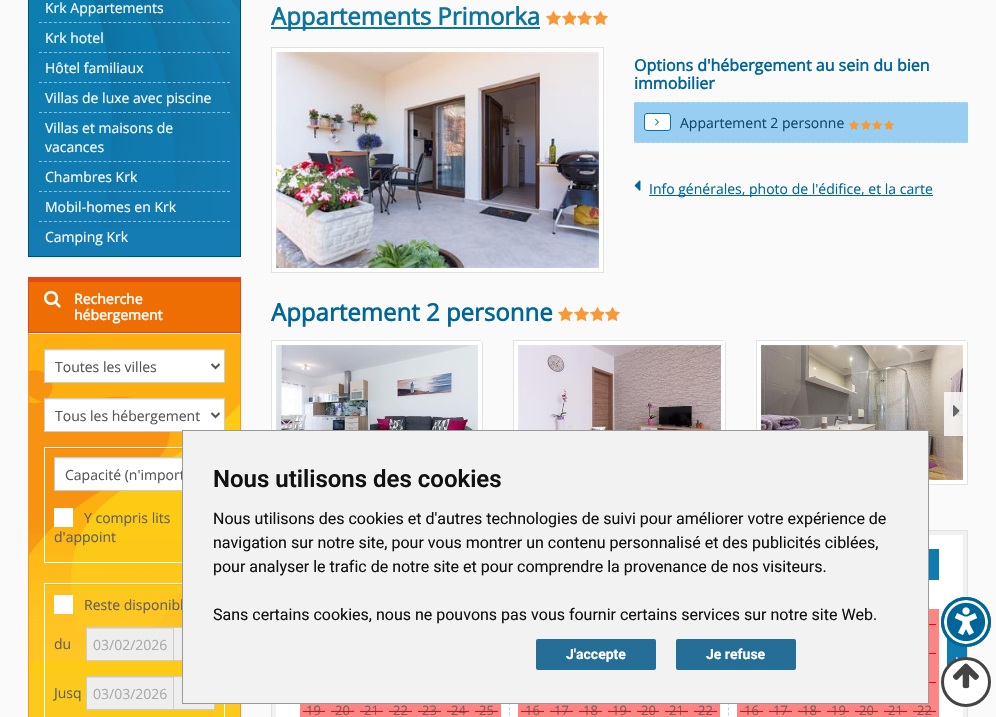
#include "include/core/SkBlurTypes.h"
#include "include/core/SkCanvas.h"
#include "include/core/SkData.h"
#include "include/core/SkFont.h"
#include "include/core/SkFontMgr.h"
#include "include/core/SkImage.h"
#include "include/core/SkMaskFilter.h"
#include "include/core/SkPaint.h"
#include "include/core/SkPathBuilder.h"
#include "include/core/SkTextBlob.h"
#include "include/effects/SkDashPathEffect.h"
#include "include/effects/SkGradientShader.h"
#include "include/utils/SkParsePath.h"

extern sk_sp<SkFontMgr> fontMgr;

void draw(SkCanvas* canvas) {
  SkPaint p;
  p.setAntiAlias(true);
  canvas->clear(SkColorSetRGB(250, 250, 250));
  p.setColor(SkColorSetARGB(13, 0, 0, 0));
  p.setMaskFilter(SkMaskFilter::MakeBlur(kNormal_SkBlurStyle, 0.5f));
  canvas->drawRect(SkRect::MakeLTRB(28, -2, 241, 258), p);
  p.setMaskFilter(nullptr);
  p.setColor(SkColorSetRGB(20, 123, 179));
  canvas->drawRect(SkRect::MakeLTRB(29, 228, 240, 256), p);
  p.setColor(SkColorSetRGB(2, 79, 118));
  canvas->drawRect(SkRect::MakeLTRB(240, 0, 241, 257), p);
  canvas->drawRect(SkRect::MakeLTRB(28, 256, 241, 257), p);
  canvas->drawRect(SkRect::MakeLTRB(28, 0, 29, 257), p);
  canvas->drawImageRect(SkImages::DeferredFromEncodedData(SkData::MakeFromFileName("images/1.png")), SkRect::MakeLTRB(29, 0, 240, 228), SkSamplingOptions());
  p.setStyle(SkPaint::kStroke_Style);
  p.setStrokeWidth(1);
  p.setColor(SkColorSetRGB(134, 196, 240));
  p.setPathEffect(SkDashPathEffect::Make({{3, 1.95f}}, 0));
  canvas->drawPath(SkPathBuilder().moveTo(39, 22.5f).lineTo(230, 22.5f).detach(), p);
  p.setPathEffect(nullptr);
  p.setPathEffect(SkDashPathEffect::Make({{3, 1.95f}}, 0));
  canvas->drawPath(SkPathBuilder().moveTo(39, 52.5f).lineTo(230, 52.5f).detach(), p);
  p.setPathEffect(nullptr);
  p.setPathEffect(SkDashPathEffect::Make({{3, 1.95f}}, 0));
  canvas->drawPath(SkPathBuilder().moveTo(39, 82.5f).lineTo(230, 82.5f).detach(), p);
  p.setPathEffect(nullptr);
  p.setPathEffect(SkDashPathEffect::Make({{3, 1.95f}}, 0));
  canvas->drawPath(SkPathBuilder().moveTo(39, 112.5f).lineTo(230, 112.5f).detach(), p);
  p.setPathEffect(nullptr);
  p.setPathEffect(SkDashPathEffect::Make({{3, 1.95f}}, 0));
  canvas->drawPath(SkPathBuilder().moveTo(39, 161.5f).lineTo(230, 161.5f).detach(), p);
  p.setPathEffect(nullptr);
  p.setPathEffect(SkDashPathEffect::Make({{3, 1.95f}}, 0));
  canvas->drawPath(SkPathBuilder().moveTo(39, 191.5f).lineTo(230, 191.5f).detach(), p);
  p.setPathEffect(nullptr);
  p.setPathEffect(SkDashPathEffect::Make({{3, 1.95f}}, 0));
  canvas->drawPath(SkPathBuilder().moveTo(39, 221.5f).lineTo(230, 221.5f).detach(), p);
  p.setPathEffect(nullptr);
  p.setStyle(SkPaint::kFill_Style);
  p.setColor(SkColorSetRGB(252, 202, 28));
  canvas->drawRect(SkRect::MakeLTRB(29, 673, 240, 717), p);
  p.setColor(SkColorSetRGB(238, 110, 3));
  canvas->drawRect(SkRect::MakeLTRB(29, 282, 240, 332), p);
  p.setColor(SkColorSetRGB(223, 74, 23));
  canvas->drawRect(SkRect::MakeLTRB(28, 277, 241, 282), p);
  canvas->drawRect(SkRect::MakeLTRB(240, 277, 241, 333), p);
  canvas->drawRect(SkRect::MakeLTRB(28, 332, 241, 333), p);
  canvas->drawRect(SkRect::MakeLTRB(28, 277, 29, 333), p);
  canvas->drawImageRect(SkImages::DeferredFromEncodedData(SkData::MakeFromFileName("images/2.png")), SkRect::MakeLTRB(44, 290, 61, 308), SkSamplingOptions());
  canvas->drawImageRect(SkImages::DeferredFromEncodedData(SkData::MakeFromFileName("images/3.png")), SkRect::MakeLTRB(29, 334, 240, 673), SkSamplingOptions());
  p.setColor(SK_ColorWHITE);
  canvas->drawRect(SkRect::MakeLTRB(28, 333, 241, 334), p);
  p.setColor(SkColorSetRGB(247, 153, 29));
  canvas->drawRect(SkRect::MakeLTRB(240, 333, 241, 717), p);
  canvas->drawRect(SkRect::MakeLTRB(28, 333, 29, 717), p);
  p.setColor(SK_ColorWHITE);
  canvas->drawRect(SkRect::MakeLTRB(45, 351, 224, 382), p);
  p.setColor(SkColorSetRGB(236, 236, 236));
  canvas->drawRect(SkRect::MakeLTRB(45, 350, 224, 351), p);
  p.setStyle(SkPaint::kStroke_Style);
  p.setColor(SkColorSetRGB(204, 204, 204));
  canvas->drawRect(SkRect::MakeLTRB(44.5f, 349.5f, 224.5f, 382.5f), p);
  p.setStrokeWidth(2);
  p.setColor(SkColorSetRGB(85, 85, 85));
  canvas->drawPath(SkPathBuilder().moveTo(211.5f, 364).lineTo(215.5f, 368).lineTo(219.5f, 364).detach(), p);
  p.setStyle(SkPaint::kFill_Style);
  p.setColor(SK_ColorWHITE);
  canvas->drawRect(SkRect::MakeLTRB(45, 400, 224, 431), p);
  p.setColor(SkColorSetRGB(236, 236, 236));
  canvas->drawRect(SkRect::MakeLTRB(45, 399, 224, 400), p);
  p.setStyle(SkPaint::kStroke_Style);
  p.setStrokeWidth(1);
  p.setColor(SkColorSetRGB(204, 204, 204));
  canvas->drawRect(SkRect::MakeLTRB(44.5f, 398.5f, 224.5f, 431.5f), p);
  p.setStrokeWidth(2);
  p.setColor(SkColorSetRGB(85, 85, 85));
  canvas->drawPath(SkPathBuilder().moveTo(211.5f, 413).lineTo(215.5f, 417).lineTo(219.5f, 413).detach(), p);
  p.setStyle(SkPaint::kFill_Style);
  p.setColor(SkColorSetARGB(13, 0, 0, 0));
  canvas->drawRect(SkRect::MakeLTRB(45, 448, 182, 449), p);
  p.setStyle(SkPaint::kStroke_Style);
  p.setStrokeWidth(1);
  p.setColor(SK_ColorWHITE);
  canvas->drawRect(SkRect::MakeLTRB(44.5f, 447.5f, 224.5f, 562.5f), p);
  p.setStyle(SkPaint::kFill_Style);
  canvas->drawRect(SkRect::MakeLTRB(55, 459, 182, 490), p);
  p.setColor(SkColorSetRGB(236, 236, 236));
  canvas->drawRect(SkRect::MakeLTRB(55, 458, 182, 459), p);
  p.setStyle(SkPaint::kStroke_Style);
  p.setColor(SkColorSetRGB(204, 204, 204));
  canvas->drawRect(SkRect::MakeLTRB(54.5f, 457.5f, 214.5f, 490.5f), p);
  p.setStyle(SkPaint::kFill_Style);
  p.setColor(SK_ColorWHITE);
  canvas->drawRect(SkRect::MakeLTRB(54, 508, 73, 527), p);
  p.setColor(SkColorSetARGB(13, 0, 0, 0));
  canvas->drawRect(SkRect::MakeLTRB(45, 584, 182, 585), p);
  p.setStyle(SkPaint::kStroke_Style);
  p.setColor(SK_ColorWHITE);
  canvas->drawRect(SkRect::MakeLTRB(44.5f, 583.5f, 224.5f, 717.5f), p);
  p.setStyle(SkPaint::kFill_Style);
  canvas->drawRect(SkRect::MakeLTRB(54, 595, 73, 614), p);
  p.setColor(SkColorSetRGB(238, 238, 238));
  canvas->drawRect(SkRect::MakeLTRB(87, 629, 173, 660), p);
  p.setColor(SkColorSetRGB(220, 220, 220));
  canvas->drawRect(SkRect::MakeLTRB(87, 628, 173, 629), p);
  p.setStyle(SkPaint::kStroke_Style);
  p.setColor(SkColorSetRGB(204, 204, 204));
  canvas->drawRect(SkRect::MakeLTRB(86.5f, 627.5f, 173.5f, 660.5f), p);
  p.setStyle(SkPaint::kFill_Style);
  p.setColor(SkColorSetRGB(238, 238, 238));
  canvas->drawRect(SkRect::MakeLTRB(174, 628, 182, 660), p);
  p.setColor(SkColorSetRGB(204, 204, 204));
  canvas->drawRect(SkRect::MakeLTRB(174, 627, 182, 628), p);
  canvas->drawRect(SkRect::MakeLTRB(174, 660, 182, 661), p);
  p.setColor(SkColorSetRGB(238, 238, 238));
  canvas->drawRect(SkRect::MakeLTRB(87, 678, 173, 709), p);
  p.setColor(SkColorSetRGB(220, 220, 220));
  canvas->drawRect(SkRect::MakeLTRB(87, 677, 173, 678), p);
  p.setStyle(SkPaint::kStroke_Style);
  p.setColor(SkColorSetRGB(204, 204, 204));
  canvas->drawRect(SkRect::MakeLTRB(86.5f, 676.5f, 173.5f, 709.5f), p);
  p.setStyle(SkPaint::kFill_Style);
  p.setColor(SkColorSetRGB(238, 238, 238));
  canvas->drawRect(SkRect::MakeLTRB(174, 677, 214, 709), p);
  p.setColor(SkColorSetRGB(204, 204, 204));
  canvas->drawRect(SkRect::MakeLTRB(174, 676, 182, 677), p);
  canvas->drawRect(SkRect::MakeLTRB(214, 704, 215, 710), p);
  canvas->drawRect(SkRect::MakeLTRB(174, 709, 215, 710), p);
  p.setColor(SkColorSetRGB(13, 116, 161));
  canvas->drawRect(SkRect::MakeLTRB(271, 27, 540, 29), p);
  canvas->drawImageRect(SkImages::DeferredFromEncodedData(SkData::MakeFromFileName("images/4.png")), SkRect::MakeLTRB(546, 11, 561, 25), SkSamplingOptions());
  canvas->drawImageRect(SkImages::DeferredFromEncodedData(SkData::MakeFromFileName("images/5.png")), SkRect::MakeLTRB(562, 11, 576, 25), SkSamplingOptions());
  canvas->drawImageRect(SkImages::DeferredFromEncodedData(SkData::MakeFromFileName("images/4.png")), SkRect::MakeLTRB(577, 11, 592, 25), SkSamplingOptions());
  canvas->drawImageRect(SkImages::DeferredFromEncodedData(SkData::MakeFromFileName("images/4.png")), SkRect::MakeLTRB(593, 11, 608, 25), SkSamplingOptions());
  canvas->save();
  canvas->clipRect(SkRect::MakeLTRB(272, 48, 603, 272));
  p.setColor(SK_ColorWHITE);
  canvas->drawPath(SkPathBuilder(SkPathFillType::kEvenOdd).moveTo(173, -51).lineTo(702, -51).lineTo(702, 371).lineTo(173, 371).close().moveTo(268, 44).lineTo(599, 44).lineTo(599, 268).lineTo(268, 268).close().detach(), p);
  canvas->drawPath(SkPathBuilder(SkPathFillType::kEvenOdd).moveTo(173, -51).lineTo(702, -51).lineTo(702, 371).lineTo(173, 371).close().moveTo(276, 52).lineTo(607, 52).lineTo(607, 276).lineTo(276, 276).close().detach(), p);
  canvas->restore();
  p.setStyle(SkPaint::kStroke_Style);
  p.setColor(SkColorSetRGB(226, 226, 226));
  canvas->drawRect(SkRect::MakeLTRB(271.5f, 47.5f, 603.5f, 272.5f), p);
  canvas->drawImageRect(SkImages::DeferredFromEncodedData(SkData::MakeFromFileName("images/6.png")), SkRect::MakeLTRB(276, 52, 599, 268), SkSamplingOptions());
  p.setStyle(SkPaint::kFill_Style);
  p.setColor(SkColorSetRGB(152, 206, 242));
  canvas->drawRect(SkRect::MakeLTRB(634, 102, 968, 143), p);
  p.setStyle(SkPaint::kStroke_Style);
  p.setColor(SkColorSetRGB(172, 217, 247));
  p.setPathEffect(SkDashPathEffect::Make({{3, 2.02f}}, 0));
  canvas->drawPath(SkPathBuilder().moveTo(634, 102.5f).lineTo(968, 102.5f).detach(), p);
  p.setPathEffect(nullptr);
  p.setPathEffect(SkDashPathEffect::Make({{3, 2.02f}}, 0));
  canvas->drawPath(SkPathBuilder().moveTo(634, 142.5f).lineTo(968, 142.5f).detach(), p);
  p.setPathEffect(nullptr);
  p.setStyle(SkPaint::kFill_Style);
  p.setColor(SK_ColorWHITE);
  canvas->drawRoundRect(SkRect::MakeLTRB(644.5f, 113.5f, 670.5f, 130.5f), 2.5f, 2.5f, p);
  p.setStyle(SkPaint::kStroke_Style);
  p.setColor(SkColorSetRGB(13, 116, 161));
  canvas->drawRoundRect(SkRect::MakeLTRB(644.5f, 113.5f, 670.5f, 130.5f), 2.5f, 2.5f, p);
  canvas->drawImageRect(SkImages::DeferredFromEncodedData(SkData::MakeFromFileName("images/7.png")), SkRect::MakeLTRB(655, 118, 659, 126), SkSamplingOptions());
  canvas->drawImageRect(SkImages::DeferredFromEncodedData(SkData::MakeFromFileName("images/8.png")), SkRect::MakeLTRB(849, 120, 859, 130), SkSamplingOptions());
  canvas->drawImageRect(SkImages::DeferredFromEncodedData(SkData::MakeFromFileName("images/8.png")), SkRect::MakeLTRB(861, 120, 871, 130), SkSamplingOptions());
  canvas->drawImageRect(SkImages::DeferredFromEncodedData(SkData::MakeFromFileName("images/8.png")), SkRect::MakeLTRB(872, 120, 882, 130), SkSamplingOptions());
  canvas->drawImageRect(SkImages::DeferredFromEncodedData(SkData::MakeFromFileName("images/8.png")), SkRect::MakeLTRB(884, 120, 894, 130), SkSamplingOptions());
  canvas->drawImageRect(SkImages::DeferredFromEncodedData(SkData::MakeFromFileName("images/9.png")), SkRect::MakeLTRB(634, 180, 641, 191), SkSamplingOptions());
  p.setStyle(SkPaint::kFill_Style);
  p.setColor(SkColorSetRGB(0, 102, 153));
  canvas->drawRect(SkRect::MakeLTRB(649, 195, 933, 196), p);
  canvas->drawImageRect(SkImages::DeferredFromEncodedData(SkData::MakeFromFileName("images/4.png")), SkRect::MakeLTRB(558, 307, 573, 321), SkSamplingOptions());
  canvas->drawImageRect(SkImages::DeferredFromEncodedData(SkData::MakeFromFileName("images/4.png")), SkRect::MakeLTRB(574, 307, 589, 321), SkSamplingOptions());
  canvas->drawImageRect(SkImages::DeferredFromEncodedData(SkData::MakeFromFileName("images/5.png")), SkRect::MakeLTRB(590, 307, 604, 321), SkSamplingOptions());
  canvas->drawImageRect(SkImages::DeferredFromEncodedData(SkData::MakeFromFileName("images/4.png")), SkRect::MakeLTRB(605, 307, 620, 321), SkSamplingOptions());
  p.setColor(SkColorSetRGB(226, 226, 226));
  canvas->drawPath(SkPathBuilder().moveTo(271, 340).lineTo(271, 483).lineTo(272, 483).lineTo(272, 341).lineTo(481, 341).lineTo(481, 340).close().detach(), p);
  canvas->drawPath(SkPathBuilder().moveTo(273, 484).lineTo(273, 485).lineTo(483, 485).lineTo(483, 342).lineTo(482, 342).lineTo(482, 484).close().detach(), p);
  p.setColor(SK_ColorWHITE);
  canvas->drawRect(SkRect::MakeLTRB(272, 341, 482, 430), p);
  canvas->drawImageRect(SkImages::DeferredFromEncodedData(SkData::MakeFromFileName("images/10.png")), SkRect::MakeLTRB(276, 345, 478, 430), SkSamplingOptions());
  p.setColor(SkColorSetRGB(226, 226, 226));
  canvas->drawPath(SkPathBuilder().moveTo(513, 340).lineTo(513, 483).lineTo(514, 483).lineTo(514, 341).lineTo(724, 341).lineTo(724, 340).close().detach(), p);
  canvas->drawPath(SkPathBuilder().moveTo(515, 484).lineTo(515, 485).lineTo(726, 485).lineTo(726, 342).lineTo(725, 342).lineTo(725, 484).close().detach(), p);
  p.setColor(SK_ColorWHITE);
  canvas->drawRect(SkRect::MakeLTRB(514, 341, 725, 430), p);
  canvas->drawImageRect(SkImages::DeferredFromEncodedData(SkData::MakeFromFileName("images/11.png")), SkRect::MakeLTRB(518, 345, 721, 430), SkSamplingOptions());
  p.setColor(SkColorSetRGB(226, 226, 226));
  canvas->drawPath(SkPathBuilder().moveTo(756, 340).lineTo(756, 483).lineTo(757, 483).lineTo(757, 341).lineTo(966, 341).lineTo(966, 340).close().detach(), p);
  canvas->drawPath(SkPathBuilder().moveTo(758, 484).lineTo(758, 485).lineTo(968, 485).lineTo(968, 342).lineTo(967, 342).lineTo(967, 484).close().detach(), p);
  p.setColor(SK_ColorWHITE);
  canvas->drawRect(SkRect::MakeLTRB(757, 341, 967, 484), p);
  canvas->drawImageRect(SkImages::DeferredFromEncodedData(SkData::MakeFromFileName("images/12.png")), SkRect::MakeLTRB(761, 345, 963, 480), SkSamplingOptions());
  p.setColor(SkColorSetARGB(204, 255, 255, 255));
  canvas->drawRect(SkRect::MakeLTRB(944, 392, 963, 436), p);
  canvas->drawImageRect(SkImages::DeferredFromEncodedData(SkData::MakeFromFileName("images/13.png")), SkRect::MakeLTRB(953, 405, 960, 417), SkSamplingOptions());
  p.setColor(SK_ColorWHITE);
  canvas->drawRect(SkRect::MakeLTRB(276, 535, 963, 717), p);
  canvas->save();
  canvas->clipRect(SkRect::MakeLTRB(272, 531, 967, 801));
  p.setColor(SkColorSetRGB(241, 241, 241));
  canvas->drawPath(SkPathBuilder(SkPathFillType::kEvenOdd).moveTo(173, 432).lineTo(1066, 432).lineTo(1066, 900).lineTo(173, 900).close().moveTo(268, 527).lineTo(963, 527).lineTo(963, 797).lineTo(268, 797).close().detach(), p);
  canvas->drawPath(SkPathBuilder(SkPathFillType::kEvenOdd).moveTo(173, 432).lineTo(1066, 432).lineTo(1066, 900).lineTo(173, 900).close().moveTo(276, 535).lineTo(971, 535).lineTo(971, 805).lineTo(276, 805).close().detach(), p);
  canvas->restore();
  p.setStyle(SkPaint::kStroke_Style);
  p.setColor(SkColorSetRGB(226, 226, 226));
  canvas->drawRect(SkRect::MakeLTRB(271.5f, 530.5f, 967.5f, 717.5f), p);
  p.setStyle(SkPaint::kFill_Style);
  p.setColor(SkColorSetRGB(14, 123, 177));
  canvas->drawRect(SkRect::MakeLTRB(947, 638, 967, 666), p);
  canvas->drawImageRect(SkImages::DeferredFromEncodedData(SkData::MakeFromFileName("images/14.png")), SkRect::MakeLTRB(956, 657, 959, 660), SkSamplingOptions());
  p.setColor(SkColorSetRGB(255, 132, 132));
  canvas->drawRect(SkRect::MakeLTRB(300, 704, 501, 717), p);
  p.setStyle(SkPaint::kStroke_Style);
  p.setColor(SkColorSetRGB(172, 217, 247));
  p.setPathEffect(SkDashPathEffect::Make({{3, 2.04f}}, 0));
  canvas->drawPath(SkPathBuilder().moveTo(509.5f, 541).lineTo(509.5f, 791).detach(), p);
  p.setPathEffect(nullptr);
  p.setStyle(SkPaint::kFill_Style);
  p.setColor(SkColorSetRGB(255, 132, 132));
  canvas->drawRect(SkRect::MakeLTRB(518, 704, 720, 717), p);
  p.setStyle(SkPaint::kStroke_Style);
  p.setColor(SkColorSetRGB(172, 217, 247));
  p.setPathEffect(SkDashPathEffect::Make({{3, 2.04f}}, 0));
  canvas->drawPath(SkPathBuilder().moveTo(728.5f, 541).lineTo(728.5f, 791).detach(), p);
  p.setPathEffect(nullptr);
  p.setStyle(SkPaint::kFill_Style);
  p.setColor(SkColorSetRGB(14, 123, 177));
  canvas->drawRect(SkRect::MakeLTRB(929, 549, 939, 580), p);
  p.setColor(SkColorSetRGB(255, 132, 132));
  canvas->drawRect(SkRect::MakeLTRB(929, 609, 939, 696), p);
  p.setColor(SkColorSetRGB(255, 0, 0));
  canvas->drawRect(SkRect::MakeLTRB(929, 624, 936, 625), p);
  canvas->drawRect(SkRect::MakeLTRB(929, 653, 936, 654), p);
  canvas->drawRect(SkRect::MakeLTRB(929, 682, 936, 683), p);
  p.setColor(SkColorSetRGB(255, 132, 132));
  canvas->drawRect(SkRect::MakeLTRB(737, 704, 910, 717), p);
  canvas->drawRect(SkRect::MakeLTRB(910, 696, 939, 717), p);
  p.setColor(SkColorSetRGB(0, 102, 153));
  canvas->drawCircle(966, 622, 25, p);
  canvas->drawImageRect(SkImages::DeferredFromEncodedData(SkData::MakeFromFileName("images/15.png")), SkRect::MakeLTRB(944, 600, 988, 644), SkSamplingOptions());
  p.setStyle(SkPaint::kStroke_Style);
  p.setStrokeWidth(3);
  canvas->drawCircle(966, 622, 23.5f, p);
  p.setStyle(SkPaint::kFill_Style);
  p.setColor(SK_ColorWHITE);
  canvas->drawCircle(966, 682, 23.5f, p);
  p.setStyle(SkPaint::kStroke_Style);
  p.setColor(SkColorSetRGB(68, 68, 68));
  canvas->drawCircle(966, 682, 23.5f, p);
  canvas->drawImageRect(SkImages::DeferredFromEncodedData(SkData::MakeFromFileName("images/16.png")), SkRect::MakeLTRB(952, 663, 979, 689), SkSamplingOptions());
  SkFont font1(fontMgr->matchFamilyStyle("Open Sans", SkFontStyle::Normal()), 14);
  font1.setSubpixel(true);
  p.setStyle(SkPaint::kFill_Style);
  p.setColor(SK_ColorWHITE);
  canvas->drawString("Krk Appartements", 45, 13, font1, p);
  canvas->drawString("Krk hotel", 45, 43, font1, p);
  canvas->drawString("Hôtel familiaux", 45, 73, font1, p);
  canvas->drawString("Villas de luxe avec piscine", 45, 103, font1, p);
  canvas->drawString("Villas et maisons de", 45, 133, font1, p);
  canvas->drawString("vacances", 45, 152, font1, p);
  canvas->drawString("Chambres Krk", 45, 182, font1, p);
  canvas->drawString("Mobil-homes en Krk", 45, 212, font1, p);
  canvas->drawString("Camping Krk", 45, 242, font1, p);
  SkFont font2(fontMgr->matchFamilyStyle("Open Sans", SkFontStyle::Bold()), 14);
  font2.setSubpixel(true);
  canvas->drawString("Recherche", 74, 304, font2, p);
  canvas->drawString("hébergement", 74, 320, font2, p);
  p.setColor(SkColorSetRGB(85, 85, 85));
  canvas->drawString("Toutes les villes", 55, 372, font1, p);
  canvas->drawString("Tous les hébergement", 55, 421, font1, p);
  canvas->drawString("Capacité (n'import", 65, 480, font1, p);
  p.setColor(SkColorSetRGB(96, 96, 96));
  canvas->drawString("Y compris lits", 84, 523, font1, p);
  canvas->drawString("d'appoint", 54, 542, font1, p);
  canvas->drawString("Reste disponibl", 84, 610, font1, p);
  canvas->drawString("du", 54, 649, font1, p);
  p.setColor(SkColorSetRGB(170, 170, 170));
  canvas->drawString("03/02/2026", 93, 650, font1, p);
  p.setColor(SkColorSetRGB(96, 96, 96));
  canvas->drawString("Jusq", 54, 698, font1, p);
  p.setColor(SkColorSetRGB(170, 170, 170));
  canvas->drawString("03/03/2026", 93, 699, font1, p);
  SkFont font3(fontMgr->matchFamilyStyle("Open Sans", SkFontStyle::Bold()), 24);
  font3.setSubpixel(true);
  p.setColor(SkColorSetRGB(13, 116, 161));
  canvas->drawString("Appartements Primorka", 271, 25, font3, p);
  SkFont font4(fontMgr->matchFamilyStyle("Open Sans", SkFontStyle::Bold()), 16);
  font4.setSubpixel(true);
  p.setColor(SkColorSetRGB(0, 102, 153));
  canvas->drawString("Options d'hébergement au sein du bien", 634, 71, font4, p);
  canvas->drawString("immobilier", 634, 89, font4, p);
  p.setColor(SkColorSetRGB(16, 73, 107));
  canvas->drawString("Appartement 2 personne", 680, 128, font1, p);
  p.setColor(SkColorSetRGB(0, 102, 153));
  canvas->drawString("Info générales, photo de l'édifice, et la carte", 649, 194, font1, p);
  canvas->drawString("Appartement 2 personne", 271, 321, font3, p);
  SkFont font5(fontMgr->matchFamilyStyle("Open Sans", SkFontStyle::Normal()), 13);
  font5.setSubpixel(true);
  p.setColor(SkColorSetRGB(102, 102, 102));
  canvas->drawString("19", 306, 715, font5, p);
  p.setColor(SkColorSetRGB(255, 0, 0));
  canvas->drawRect(SkRect::MakeLTRB(303, 711, 325, 712), p);
  p.setColor(SkColorSetRGB(102, 102, 102));
  canvas->drawString("20", 335, 715, font5, p);
  p.setColor(SkColorSetRGB(255, 0, 0));
  canvas->drawRect(SkRect::MakeLTRB(331, 711, 354, 712), p);
  p.setColor(SkColorSetRGB(102, 102, 102));
  canvas->drawString("21", 364, 715, font5, p);
  p.setColor(SkColorSetRGB(255, 0, 0));
  canvas->drawRect(SkRect::MakeLTRB(360, 711, 383, 712), p);
  p.setColor(SkColorSetRGB(102, 102, 102));
  canvas->drawString("22", 393, 715, font5, p);
  p.setColor(SkColorSetRGB(255, 0, 0));
  canvas->drawRect(SkRect::MakeLTRB(389, 711, 412, 712), p);
  p.setColor(SkColorSetRGB(102, 102, 102));
  canvas->drawString("23", 422, 715, font5, p);
  p.setColor(SkColorSetRGB(255, 0, 0));
  canvas->drawRect(SkRect::MakeLTRB(418, 711, 441, 712), p);
  p.setColor(SkColorSetRGB(102, 102, 102));
  canvas->drawString("24", 451, 715, font5, p);
  p.setColor(SkColorSetRGB(255, 0, 0));
  canvas->drawRect(SkRect::MakeLTRB(447, 711, 469, 712), p);
  p.setColor(SkColorSetRGB(102, 102, 102));
  canvas->drawString("25", 479, 715, font5, p);
  p.setColor(SkColorSetRGB(255, 0, 0));
  canvas->drawRect(SkRect::MakeLTRB(475, 711, 498, 712), p);
  p.setColor(SkColorSetRGB(102, 102, 102));
  canvas->drawString("16", 525, 715, font5, p);
  p.setColor(SkColorSetRGB(255, 0, 0));
  canvas->drawRect(SkRect::MakeLTRB(521, 711, 544, 712), p);
  p.setColor(SkColorSetRGB(102, 102, 102));
  canvas->drawString("17", 554, 715, font5, p);
  p.setColor(SkColorSetRGB(255, 0, 0));
  canvas->drawRect(SkRect::MakeLTRB(550, 711, 573, 712), p);
  p.setColor(SkColorSetRGB(102, 102, 102));
  canvas->drawString("18", 583, 715, font5, p);
  p.setColor(SkColorSetRGB(255, 0, 0));
  canvas->drawRect(SkRect::MakeLTRB(579, 711, 602, 712), p);
  p.setColor(SkColorSetRGB(102, 102, 102));
  canvas->drawString("19", 612, 715, font5, p);
  p.setColor(SkColorSetRGB(255, 0, 0));
  canvas->drawRect(SkRect::MakeLTRB(608, 711, 631, 712), p);
  p.setColor(SkColorSetRGB(102, 102, 102));
  canvas->drawString("20", 641, 715, font5, p);
  p.setColor(SkColorSetRGB(255, 0, 0));
  canvas->drawRect(SkRect::MakeLTRB(637, 711, 659, 712), p);
  p.setColor(SkColorSetRGB(102, 102, 102));
  canvas->drawString("21", 669, 715, font5, p);
  p.setColor(SkColorSetRGB(255, 0, 0));
  canvas->drawRect(SkRect::MakeLTRB(665, 711, 688, 712), p);
  p.setColor(SkColorSetRGB(102, 102, 102));
  canvas->drawString("22", 698, 715, font5, p);
  p.setColor(SkColorSetRGB(255, 0, 0));
  canvas->drawRect(SkRect::MakeLTRB(694, 711, 717, 712), p);
  p.setColor(SkColorSetRGB(102, 102, 102));
  canvas->drawString("16", 744, 715, font5, p);
  p.setColor(SkColorSetRGB(255, 0, 0));
  canvas->drawRect(SkRect::MakeLTRB(740, 711, 763, 712), p);
  p.setColor(SkColorSetRGB(102, 102, 102));
  canvas->drawString("17", 773, 715, font5, p);
  p.setColor(SkColorSetRGB(255, 0, 0));
  canvas->drawRect(SkRect::MakeLTRB(769, 711, 792, 712), p);
  p.setColor(SkColorSetRGB(102, 102, 102));
  canvas->drawString("18", 802, 715, font5, p);
  p.setColor(SkColorSetRGB(255, 0, 0));
  canvas->drawRect(SkRect::MakeLTRB(798, 711, 821, 712), p);
  p.setColor(SkColorSetRGB(102, 102, 102));
  canvas->drawString("19", 831, 715, font5, p);
  p.setColor(SkColorSetRGB(255, 0, 0));
  canvas->drawRect(SkRect::MakeLTRB(827, 711, 849, 712), p);
  p.setColor(SkColorSetRGB(102, 102, 102));
  canvas->drawString("20", 859, 715, font5, p);
  p.setColor(SkColorSetRGB(255, 0, 0));
  canvas->drawRect(SkRect::MakeLTRB(855, 711, 878, 712), p);
  p.setColor(SkColorSetRGB(102, 102, 102));
  canvas->drawString("21", 888, 715, font5, p);
  p.setColor(SkColorSetRGB(255, 0, 0));
  canvas->drawRect(SkRect::MakeLTRB(884, 711, 907, 712), p);
  p.setColor(SkColorSetRGB(102, 102, 102));
  canvas->drawString("22", 917, 715, font5, p);
  p.setColor(SkColorSetRGB(255, 0, 0));
  canvas->drawRect(SkRect::MakeLTRB(913, 711, 936, 712), p);
  p.setColor(SkColorSetRGB(242, 242, 242));
  canvas->drawRect(SkRect::MakeLTRB(182.5f, 430.5f, 928.5f, 703.5f), p);
  p.setStyle(SkPaint::kStroke_Style);
  p.setStrokeWidth(1);
  p.setColor(SkColorSetRGB(153, 153, 153));
  canvas->drawRect(SkRect::MakeLTRB(182.5f, 430.5f, 928.5f, 703.5f), p);
  SkFont font6(fontMgr->matchFamilyStyle("Roboto", SkFontStyle(600, SkFontStyle::kNormal_Width, SkFontStyle::kUpright_Slant)), 24);
  font6.setSubpixel(true);
  p.setStyle(SkPaint::kFill_Style);
  p.setColor(SkColorSetRGB(17, 17, 17));
  canvas->drawString("Nous utilisons des cookies", 213, 487, font6, p);
  SkFont font7(fontMgr->matchFamilyStyle("Roboto", SkFontStyle::Normal()), 16);
  font7.setSubpixel(true);
  canvas->drawString("Nous utilisons des cookies et d'autres technologies de suivi pour améliorer votre expérience de", 213, 524, font7, p);
  canvas->drawString("navigation sur notre site, pour vous montrer un contenu personnalisé et des publicités ciblées,", 213, 548, font7, p);
  canvas->drawString("pour analyser le trafic de notre site et pour comprendre la provenance de nos visiteurs.", 213, 572, font7, p);
  canvas->drawString("Sans certains cookies, nous ne pouvons pas vous fournir certains services sur notre site Web.", 213, 620, font7, p);
  p.setColor(SkColorSetRGB(36, 110, 151));
  canvas->drawRoundRect(SkRect::MakeLTRB(536, 639, 656, 670), 2, 2, p);
  SkFont font8(fontMgr->matchFamilyStyle("Roboto", SkFontStyle::Bold()), 14);
  font8.setSubpixel(true);
  p.setColor(SK_ColorWHITE);
  canvas->drawString("J'accepte", 566, 659, font8, p);
  p.setColor(SkColorSetRGB(36, 110, 151));
  canvas->drawRoundRect(SkRect::MakeLTRB(676, 639, 796, 670), 2, 2, p);
  p.setColor(SK_ColorWHITE);
  canvas->drawString("Je refuse", 706, 659, font8, p);
}
